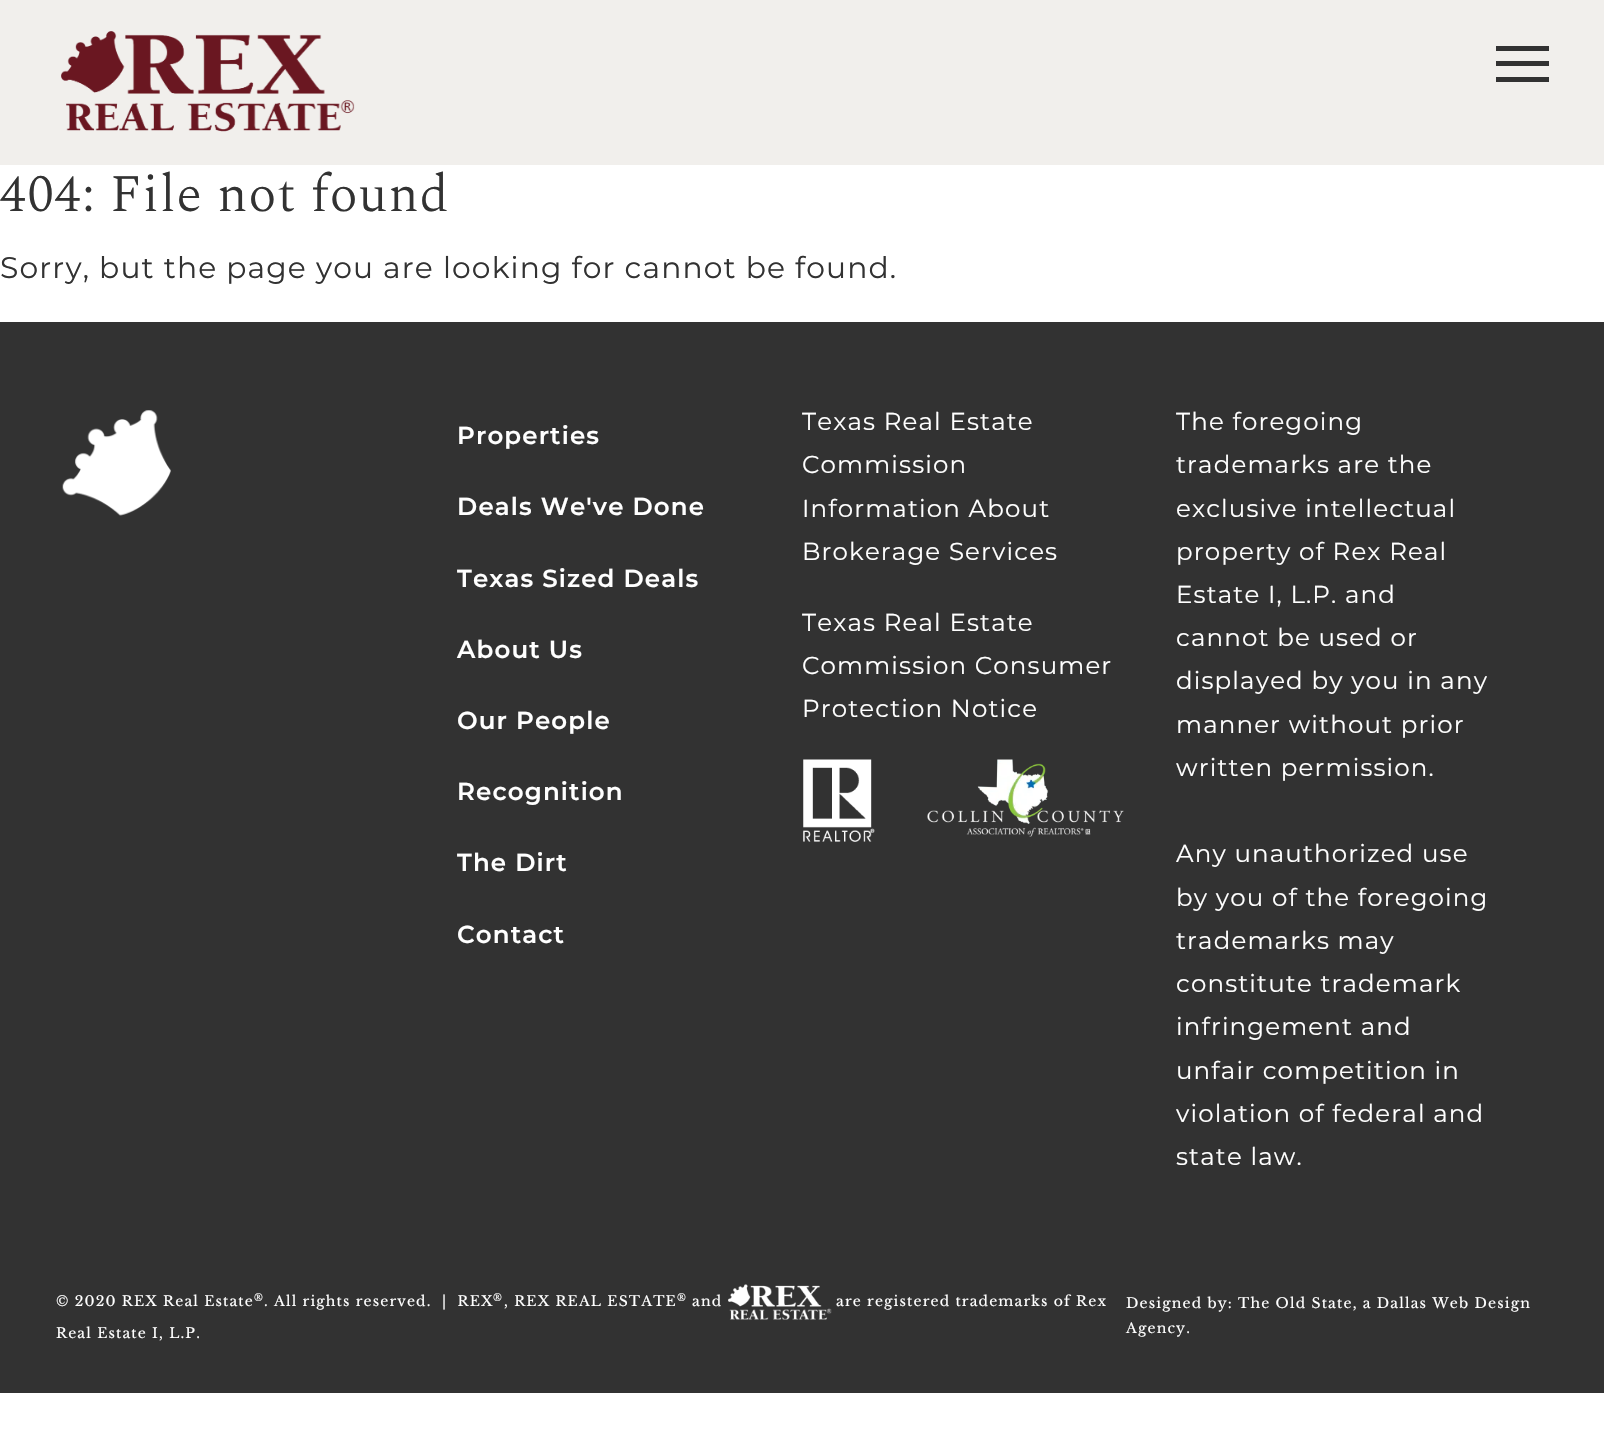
#include "include/core/SkBlurTypes.h"
#include "include/core/SkCanvas.h"
#include "include/core/SkData.h"
#include "include/core/SkFont.h"
#include "include/core/SkFontMgr.h"
#include "include/core/SkImage.h"
#include "include/core/SkMaskFilter.h"
#include "include/core/SkPaint.h"
#include "include/core/SkPathBuilder.h"
#include "include/core/SkTextBlob.h"
#include "include/effects/SkDashPathEffect.h"
#include "include/effects/SkGradientShader.h"
#include "include/utils/SkParsePath.h"

extern sk_sp<SkFontMgr> fontMgr;

void draw(SkCanvas* canvas) {
  SkPaint p;
  p.setAntiAlias(true);
  auto spacedText = [&](const char* s, float x, float y, const SkFont& font, const SkPaint& ink, float letter, float word) {
    std::vector<SkGlyphID> glyphs(font.countText(s, strlen(s), SkTextEncoding::kUTF8));
    std::vector<float> xs(glyphs.size());
    font.textToGlyphs(s, strlen(s), SkTextEncoding::kUTF8, glyphs);
    font.getXPos(glyphs, xs, x);
    float extra = 0;
    for (size_t i = 0; i < glyphs.size(); i++) {
      xs[i] += extra;
      extra += letter + word * (glyphs[i] == font.unicharToGlyph(' '));
    }
    canvas->drawTextBlob(SkTextBlob::MakeFromPosHGlyphs(glyphs, xs, y, font), 0, 0, ink);
  };
  canvas->clear(SK_ColorWHITE);
  p.setColor(SkColorSetRGB(241, 239, 236));
  canvas->drawRect(SkRect::MakeLTRB(0, 0, 1604, 165), p);
  canvas->drawImageRect(SkImages::DeferredFromEncodedData(SkData::MakeFromFileName("images/1.png")), SkRect::MakeLTRB(61, 31, 355, 132), SkSamplingOptions());
  p.setColor(SkColorSetRGB(50, 50, 50));
  canvas->drawRect(SkRect::MakeLTRB(1496, 46, 1549, 51), p);
  canvas->drawRect(SkRect::MakeLTRB(1496, 61, 1549, 66), p);
  canvas->drawRect(SkRect::MakeLTRB(1496, 77, 1549, 82), p);
  canvas->drawRect(SkRect::MakeLTRB(0, 322, 1604, 1393), p);
  canvas->drawImageRect(SkImages::DeferredFromEncodedData(SkData::MakeFromFileName("images/2.png")), SkRect::MakeLTRB(62, 410, 171, 516), SkSamplingOptions());
  canvas->drawImageRect(SkImages::DeferredFromEncodedData(SkData::MakeFromFileName("images/3.png")), SkRect::MakeLTRB(803, 759, 875, 842), SkSamplingOptions());
  canvas->drawImageRect(SkImages::DeferredFromEncodedData(SkData::MakeFromFileName("images/4.png")), SkRect::MakeLTRB(927, 759, 1124, 837), SkSamplingOptions());
  canvas->drawImageRect(SkImages::DeferredFromEncodedData(SkData::MakeFromFileName("images/5.png")), SkRect::MakeLTRB(728, 1284, 832, 1320), SkSamplingOptions());
  SkFont font1(fontMgr->matchFamilyStyle("Spectral", SkFontStyle(300, SkFontStyle::kNormal_Width, SkFontStyle::kUpright_Slant)), 52.5f);
  font1.setSubpixel(true);
  spacedText("404: File not found", 0, 211, font1, p, 1.15f, 0);
  SkFont font2(fontMgr->matchFamilyStyle("Montserrat", SkFontStyle::Normal()), 29.75f);
  font2.setSubpixel(true);
  spacedText("Sorry, but the page you are looking for cannot be found.", 0, 278, font2, p, 1.15f, 0);
  SkFont font3(fontMgr->matchFamilyStyle("Montserrat", SkFontStyle(600, SkFontStyle::kNormal_Width, SkFontStyle::kUpright_Slant)), 24.5f);
  font3.setSubpixel(true);
  p.setColor(SK_ColorWHITE);
  spacedText("Properties", 457, 444, font3, p, 1.15f, 0);
  spacedText("Deals We've Done", 457, 515, font3, p, 1.15f, 0);
  spacedText("Texas Sized Deals", 457, 587, font3, p, 1.15f, 0);
  spacedText("About Us", 457, 658, font3, p, 1.15f, 0);
  spacedText("Our People", 457, 729, font3, p, 1.15f, 0);
  spacedText("Recognition", 457, 800, font3, p, 1.15f, 0);
  spacedText("The Dirt", 457, 871, font3, p, 1.15f, 0);
  spacedText("Contact", 457, 943, font3, p, 1.15f, 0);
  SkFont font4(fontMgr->matchFamilyStyle("Montserrat", SkFontStyle::Normal()), 24.5f);
  font4.setSubpixel(true);
  spacedText("Texas Real Estate", 802, 430, font4, p, 1.15f, 0);
  spacedText("Commission", 802, 473, font4, p, 1.15f, 0);
  spacedText("Information About", 802, 517, font4, p, 1.15f, 0);
  spacedText("Brokerage Services", 802, 560, font4, p, 1.15f, 0);
  spacedText("Texas Real Estate", 802, 631, font4, p, 1.15f, 0);
  spacedText("Commission Consumer", 802, 674, font4, p, 1.15f, 0);
  spacedText("Protection Notice", 802, 717, font4, p, 1.15f, 0);
  spacedText("The foregoing", 1176, 430, font4, p, 1.15f, 0);
  spacedText("trademarks are the", 1176, 473, font4, p, 1.15f, 0);
  spacedText("exclusive intellectual", 1176, 517, font4, p, 1.15f, 0);
  spacedText("property of Rex Real", 1176, 560, font4, p, 1.15f, 0);
  spacedText("Estate I, L.P. and", 1176, 603, font4, p, 1.15f, 0);
  spacedText("cannot be used or", 1176, 646, font4, p, 1.15f, 0);
  spacedText("displayed by you in any", 1176, 689, font4, p, 1.15f, 0);
  spacedText("manner without prior", 1176, 733, font4, p, 1.15f, 0);
  spacedText("written permission.", 1176, 776, font4, p, 1.15f, 0);
  spacedText("Any unauthorized use", 1176, 862, font4, p, 1.15f, 0);
  spacedText("by you of the foregoing", 1176, 906, font4, p, 1.15f, 0);
  spacedText("trademarks may", 1176, 949, font4, p, 1.15f, 0);
  spacedText("constitute trademark", 1176, 992, font4, p, 1.15f, 0);
  spacedText("infringement and", 1176, 1035, font4, p, 1.15f, 0);
  spacedText("unfair competition in", 1176, 1079, font4, p, 1.15f, 0);
  spacedText("violation of federal and", 1176, 1122, font4, p, 1.15f, 0);
  spacedText("state law.", 1176, 1165, font4, p, 1.15f, 0);
  SkFont font5(fontMgr->matchFamilyStyle("Libre Baskerville", SkFontStyle::Normal()), 14);
  font5.setSubpixel(true);
  spacedText("© 2020 REX Real Estate", 56, 1306, font5, p, 1.15f, 0);
  SkFont font6(fontMgr->matchFamilyStyle("Libre Baskerville", SkFontStyle::Normal()), 10);
  font6.setSubpixel(true);
  spacedText("®", 254, 1301, font6, p, 1.15f, 0);
  spacedText(". All rights reserved.  |  REX", 264, 1306, font5, p, 1.15f, 0);
  spacedText("®", 493, 1301, font6, p, 1.15f, 0);
  spacedText(", REX REAL ESTATE", 504, 1306, font5, p, 1.15f, 0);
  spacedText("®", 677, 1301, font6, p, 1.15f, 0);
  spacedText("and", 692, 1306, font5, p, 1.15f, 0);
  spacedText("are registered trademarks of Rex", 836, 1306, font5, p, 1.15f, 0);
  spacedText("Real Estate I, L.P.", 56, 1338, font5, p, 1.15f, 0);
  spacedText("Designed by: The Old State, a Dallas Web Design", 1126, 1308, font5, p, 1.15f, 0);
  spacedText("Agency.", 1126, 1333, font5, p, 1.15f, 0);
}
